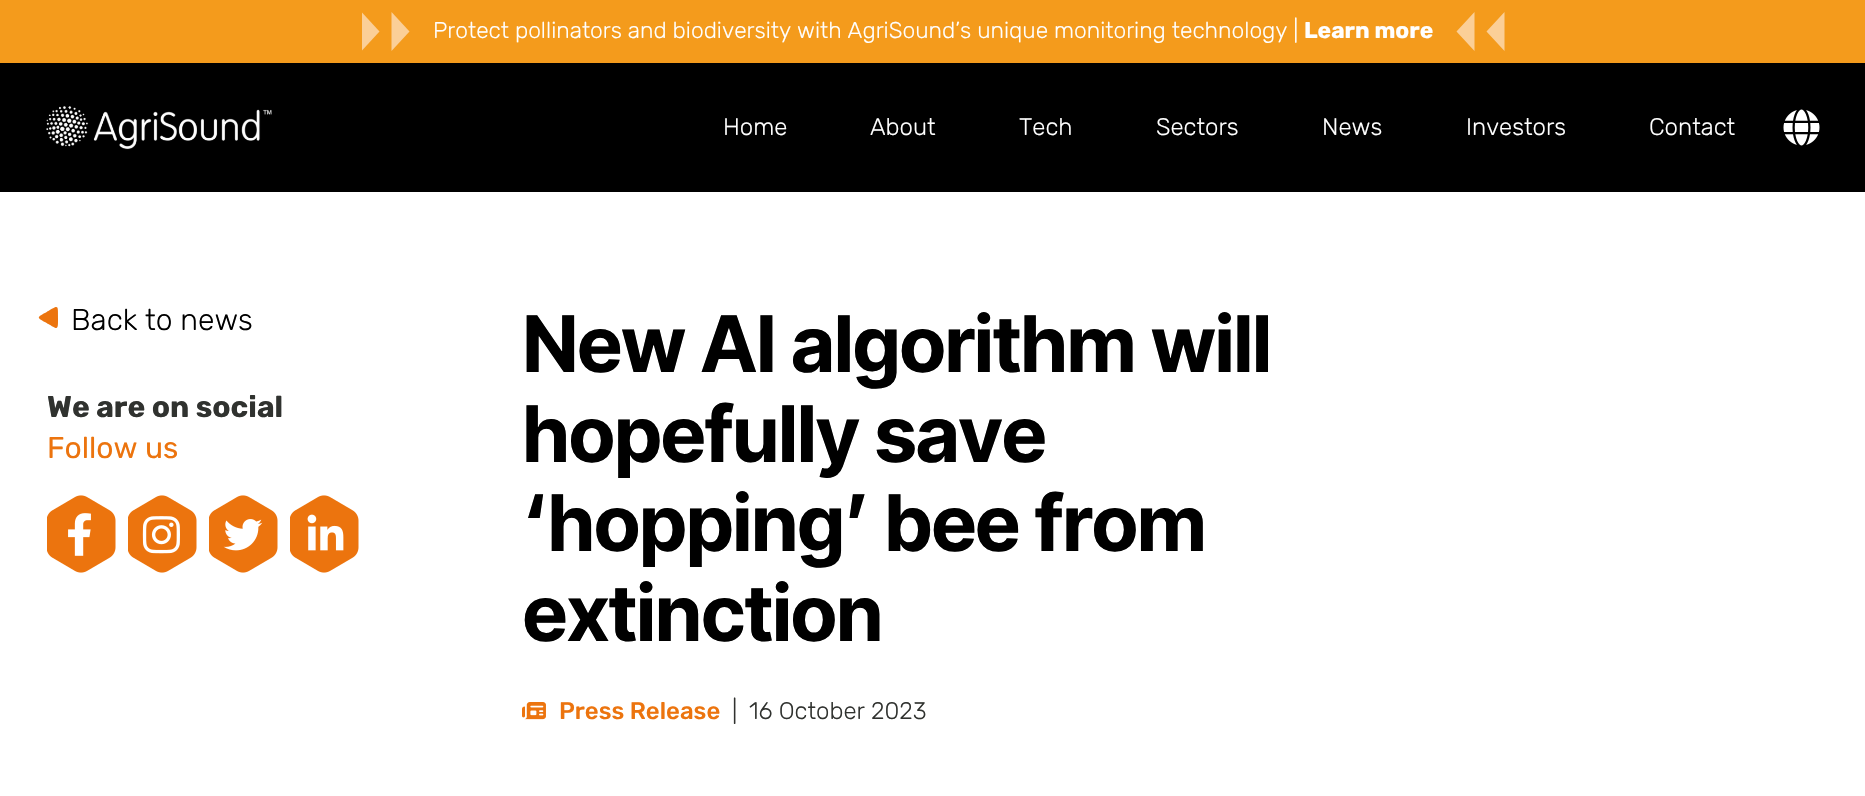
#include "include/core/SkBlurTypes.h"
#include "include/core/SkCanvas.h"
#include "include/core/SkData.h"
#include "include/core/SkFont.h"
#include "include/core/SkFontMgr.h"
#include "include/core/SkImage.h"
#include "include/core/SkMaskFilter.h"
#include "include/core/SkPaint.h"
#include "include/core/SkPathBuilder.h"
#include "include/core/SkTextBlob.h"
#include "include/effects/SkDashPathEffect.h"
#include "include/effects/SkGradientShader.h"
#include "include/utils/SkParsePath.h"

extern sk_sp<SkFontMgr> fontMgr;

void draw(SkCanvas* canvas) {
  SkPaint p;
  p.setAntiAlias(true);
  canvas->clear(SK_ColorWHITE);
  p.setColor(SK_ColorBLACK);
  canvas->drawRect(SkRect::MakeLTRB(0, 63, 1865, 192), p);
  p.setColor(SkColorSetRGB(244, 155, 28));
  canvas->drawRect(SkRect::MakeLTRB(0, 0, 1865, 63), p);
  p.setColor(SkColorSetRGB(251, 207, 151));
  canvas->drawPath(SkPathBuilder().moveTo(409.5f, 31.5f).lineTo(391.5f, 51).lineTo(391.5f, 12).close().detach(), p);
  canvas->save();
  canvas->clipRect(SkRect::MakeLTRB(362, 12, 410, 51));
  canvas->drawPath(SkPathBuilder().moveTo(379.5f, 31.5f).lineTo(361.5f, 51).lineTo(361.5f, 12).close().detach(), p);
  canvas->restore();
  canvas->drawPath(SkPathBuilder().moveTo(1456.5f, 31.5f).lineTo(1474.5f, 12).lineTo(1474.5f, 51).close().moveTo(1486.5f, 31.5f).lineTo(1504.5f, 12).lineTo(1504.5f, 51).close().detach(), p);
  canvas->drawImageRect(SkImages::DeferredFromEncodedData(SkData::MakeFromFileName("images/1.png")), SkRect::MakeLTRB(46, 106, 272, 150), SkSamplingOptions());
  canvas->drawImageRect(SkImages::DeferredFromEncodedData(SkData::MakeFromFileName("images/2.png")), SkRect::MakeLTRB(1783, 109, 1820, 146), SkSamplingOptions());
  p.setColor(SkColorSetRGB(236, 116, 14));
  canvas->drawPath(SkPathBuilder().moveTo(58, 317.5f).cubicTo(58, 330.5f, 58.5f, 330, 47.5f, 323.5f).lineTo(47.5f, 311.5f).close().detach(), p);
  canvas->drawPath(SkPathBuilder().moveTo(47.5f, 311.5f).cubicTo(58.5f, 305, 58, 304.5f, 58, 317.5f).lineTo(47.5f, 323.5f).close().detach(), p);
  canvas->drawPath(SkPathBuilder().moveTo(47.5f, 323.5f).cubicTo(36, 317, 36, 318, 47.5f, 311.5f).lineTo(58, 317.5f).close().detach(), p);
  canvas->drawImageRect(SkImages::DeferredFromEncodedData(SkData::MakeFromFileName("images/3.png")), SkRect::MakeLTRB(47, 495, 116, 573), SkSamplingOptions());
  canvas->drawImageRect(SkImages::DeferredFromEncodedData(SkData::MakeFromFileName("images/4.png")), SkRect::MakeLTRB(128, 495, 197, 573), SkSamplingOptions());
  canvas->drawImageRect(SkImages::DeferredFromEncodedData(SkData::MakeFromFileName("images/5.png")), SkRect::MakeLTRB(209, 495, 278, 573), SkSamplingOptions());
  canvas->drawImageRect(SkImages::DeferredFromEncodedData(SkData::MakeFromFileName("images/6.png")), SkRect::MakeLTRB(290, 495, 359, 573), SkSamplingOptions());
  canvas->drawImageRect(SkImages::DeferredFromEncodedData(SkData::MakeFromFileName("images/7.png")), SkRect::MakeLTRB(522, 702, 546, 720), SkSamplingOptions());
  SkFont font1(fontMgr->matchFamilyStyle("Rubik", SkFontStyle(300, SkFontStyle::kNormal_Width, SkFontStyle::kUpright_Slant)), 22.8f);
  font1.setSubpixel(true);
  p.setColor(SK_ColorWHITE);
  canvas->drawString("Protect pollinators and biodiversity with AgriSound’s unique monitoring technology |", 433, 38, font1, p);
  SkFont font2(fontMgr->matchFamilyStyle("Rubik", SkFontStyle::Bold()), 22.8f);
  font2.setSubpixel(true);
  canvas->drawString("Learn more", 1304, 38, font2, p);
  SkFont font3(fontMgr->matchFamilyStyle("Rubik", SkFontStyle(300, SkFontStyle::kNormal_Width, SkFontStyle::kUpright_Slant)), 24);
  font3.setSubpixel(true);
  canvas->drawString("Home", 723, 135, font3, p);
  canvas->drawString("About", 870, 135, font3, p);
  canvas->drawString("Tech", 1019, 135, font3, p);
  canvas->drawString("Sectors", 1156, 135, font3, p);
  canvas->drawString("News", 1322, 135, font3, p);
  canvas->drawString("Investors", 1466, 135, font3, p);
  canvas->drawString("Contact", 1649, 135, font3, p);
  SkFont font4(fontMgr->matchFamilyStyle("Rubik", SkFontStyle(300, SkFontStyle::kNormal_Width, SkFontStyle::kUpright_Slant)), 30);
  font4.setSubpixel(true);
  p.setColor(SK_ColorBLACK);
  canvas->drawString("Back to news", 71, 330, font4, p);
  SkFont font5(fontMgr->matchFamilyStyle("Rubik", SkFontStyle::Bold()), 30);
  font5.setSubpixel(true);
  p.setColor(SkColorSetRGB(48, 50, 47));
  canvas->drawString("We are on social", 47, 417, font5, p);
  SkFont font6(fontMgr->matchFamilyStyle("Rubik", SkFontStyle::Normal()), 30);
  font6.setSubpixel(true);
  p.setColor(SkColorSetRGB(236, 116, 14));
  canvas->drawString("Follow us", 47, 458, font6, p);
  SkFont font7(fontMgr->matchFamilyStyle("Inter Tight", SkFontStyle::Bold()), 78);
  font7.setSubpixel(true);
  p.setColor(SK_ColorBLACK);
  canvas->drawString("New AI algorithm will", 523, 372, font7, p);
  canvas->drawString("hopefully save", 523, 462, font7, p);
  canvas->drawString("‘hopping’ bee from", 523, 551, font7, p);
  canvas->drawString("extinction", 523, 641, font7, p);
  SkFont font8(fontMgr->matchFamilyStyle("Rubik", SkFontStyle(500, SkFontStyle::kNormal_Width, SkFontStyle::kUpright_Slant)), 24);
  font8.setSubpixel(true);
  p.setColor(SkColorSetRGB(236, 116, 14));
  canvas->drawString("Press Release", 559, 719, font8, p);
  p.setColor(SkColorSetRGB(48, 50, 47));
  canvas->drawString("|", 732, 719, font3, p);
  canvas->drawString("16 October 2023", 749, 719, font3, p);
}
